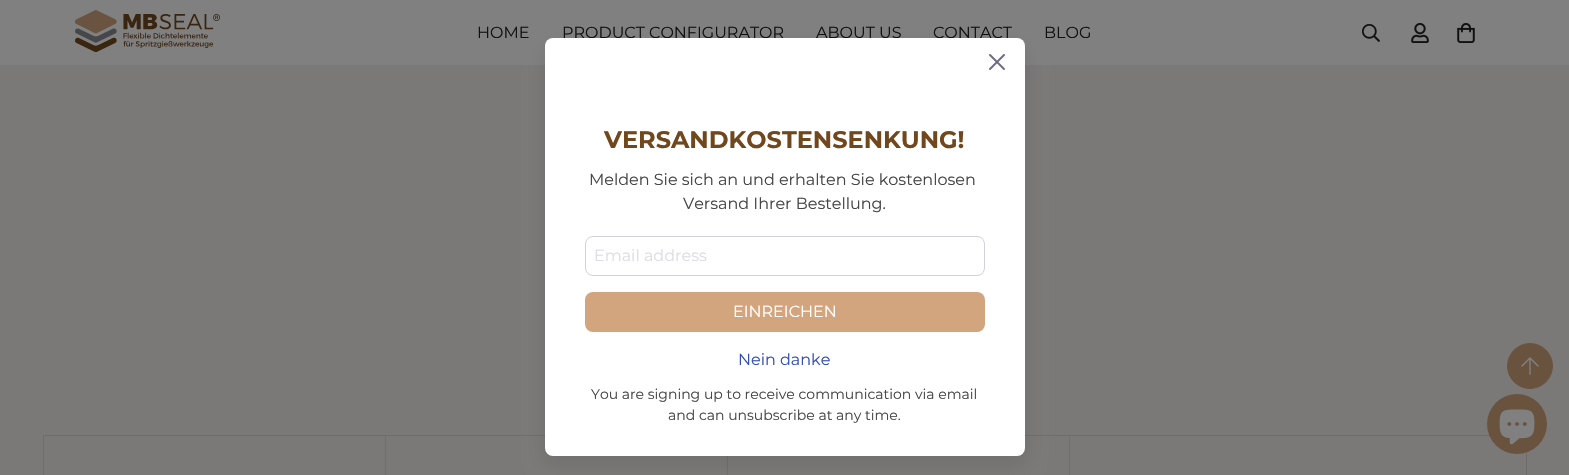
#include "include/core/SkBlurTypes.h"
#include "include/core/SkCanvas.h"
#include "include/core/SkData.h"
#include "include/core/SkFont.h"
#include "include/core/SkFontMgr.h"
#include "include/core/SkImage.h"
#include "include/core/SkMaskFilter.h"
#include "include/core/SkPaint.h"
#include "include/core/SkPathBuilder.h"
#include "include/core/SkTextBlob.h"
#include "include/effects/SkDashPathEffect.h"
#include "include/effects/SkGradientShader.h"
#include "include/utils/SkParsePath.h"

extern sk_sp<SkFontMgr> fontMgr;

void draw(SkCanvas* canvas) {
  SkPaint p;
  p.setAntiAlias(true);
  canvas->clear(SkColorSetRGB(123, 121, 119));
  p.setColor(SkColorSetRGB(128, 128, 128));
  canvas->drawRect(SkRect::MakeLTRB(0, 0, 1569, 65), p);
  canvas->drawImageRect(SkImages::DeferredFromEncodedData(SkData::MakeFromFileName("images/1.png")), SkRect::MakeLTRB(75, 10, 220, 52), SkSamplingOptions());
  canvas->drawImageRect(SkImages::DeferredFromEncodedData(SkData::MakeFromFileName("images/2.png")), SkRect::MakeLTRB(1362, 24, 1380, 42), SkSamplingOptions());
  canvas->drawImageRect(SkImages::DeferredFromEncodedData(SkData::MakeFromFileName("images/3.png")), SkRect::MakeLTRB(1411, 23, 1429, 43), SkSamplingOptions());
  canvas->drawImageRect(SkImages::DeferredFromEncodedData(SkData::MakeFromFileName("images/4.png")), SkRect::MakeLTRB(1457, 23, 1475, 43), SkSamplingOptions());
  p.setStyle(SkPaint::kStroke_Style);
  p.setStrokeWidth(1);
  p.setColor(SkColorSetRGB(109, 109, 109));
  canvas->drawRect(SkRect::MakeLTRB(43.5f, 435.5f, 1526.5f, 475.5f), p);
  p.setStyle(SkPaint::kFill_Style);
  p.setColor(SkColorSetRGB(111, 111, 111));
  canvas->drawRect(SkRect::MakeLTRB(727, 456, 728, 475), p);
  p.setColor(SkColorSetARGB(26, 18, 17, 39));
  p.setMaskFilter(SkMaskFilter::MakeBlur(kNormal_SkBlurStyle, 10));
  canvas->drawRoundRect(SkRect::MakeLTRB(545, 46, 1025, 464), 8, 8, p);
  p.setMaskFilter(nullptr);
  p.setColor(SkColorSetRGB(105, 83, 63));
  canvas->drawCircle(1530, 366, 22.5f, p);
  p.setStyle(SkPaint::kStroke_Style);
  canvas->drawCircle(1530, 366, 22.5f, p);
  canvas->drawImageRect(SkImages::DeferredFromEncodedData(SkData::MakeFromFileName("images/6.png")), SkRect::MakeLTRB(1521, 357, 1539, 375), SkSamplingOptions());
  p.setStyle(SkPaint::kFill_Style);
  canvas->drawCircle(1517, 424, 30, p);
  canvas->drawImageRect(SkImages::DeferredFromEncodedData(SkData::MakeFromFileName("images/7.png")), SkRect::MakeLTRB(1499, 409, 1535, 445), SkSamplingOptions());
  p.setColor(SkColorSetRGB(111, 111, 111));
  canvas->drawRect(SkRect::MakeLTRB(385, 436, 386, 475), p);
  canvas->drawRect(SkRect::MakeLTRB(1069, 436, 1070, 475), p);
  SkFont font1(fontMgr->matchFamilyStyle("Montserrat", SkFontStyle::Normal()), 16);
  font1.setSubpixel(true);
  p.setColor(SkColorSetRGB(17, 17, 17));
  canvas->drawString("HOME", 477, 38, font1, p);
  canvas->drawString("PRODUCT CONFIGURATOR", 562, 38, font1, p);
  canvas->drawString("ABOUT US", 816, 38, font1, p);
  canvas->drawString("CONTACT", 933, 38, font1, p);
  canvas->drawString("BLOG", 1044, 38, font1, p);
  p.setColor(SK_ColorWHITE);
  canvas->drawRoundRect(SkRect::MakeLTRB(545, 38, 1025, 456), 8, 8, p);
  canvas->drawImageRect(SkImages::DeferredFromEncodedData(SkData::MakeFromFileName("images/5.png")), SkRect::MakeLTRB(989, 54, 1005, 70), SkSamplingOptions());
  SkFont font2(fontMgr->matchFamilyStyle("Montserrat", SkFontStyle::Bold()), 24);
  font2.setSubpixel(true);
  p.setColor(SkColorSetRGB(113, 71, 29));
  canvas->drawString("VERSANDKOSTENSENKUNG!", 604, 148, font2, p);
  p.setColor(SkColorSetRGB(69, 69, 69));
  canvas->drawString("Melden Sie sich an und erhalten Sie kostenlosen", 589, 185, font1, p);
  canvas->drawString("Versand Ihrer Bestellung.", 683, 209, font1, p);
  p.setStyle(SkPaint::kStroke_Style);
  p.setColor(SkColorSetRGB(209, 209, 219));
  canvas->drawRoundRect(SkRect::MakeLTRB(585.5f, 236.5f, 984.5f, 275.5f), 7.5f, 7.5f, p);
  p.setStyle(SkPaint::kFill_Style);
  p.setColor(SkColorSetRGB(221, 221, 228));
  canvas->drawString("Email address", 594, 261, font1, p);
  p.setColor(SkColorSetRGB(210, 165, 126));
  canvas->drawRoundRect(SkRect::MakeLTRB(585, 292, 985, 332), 8, 8, p);
  p.setColor(SK_ColorWHITE);
  canvas->drawString("EINREICHEN", 733, 317, font1, p);
  p.setColor(SkColorSetRGB(51, 79, 180));
  canvas->drawString("Nein danke", 738, 365, font1, p);
  SkFont font3(fontMgr->matchFamilyStyle("Montserrat", SkFontStyle::Normal()), 14);
  font3.setSubpixel(true);
  p.setColor(SkColorSetRGB(69, 69, 69));
  canvas->drawString("You are signing up to receive communication via email", 591, 399, font3, p);
  canvas->drawString("and can unsubscribe at any time.", 668, 420, font3, p);
}
